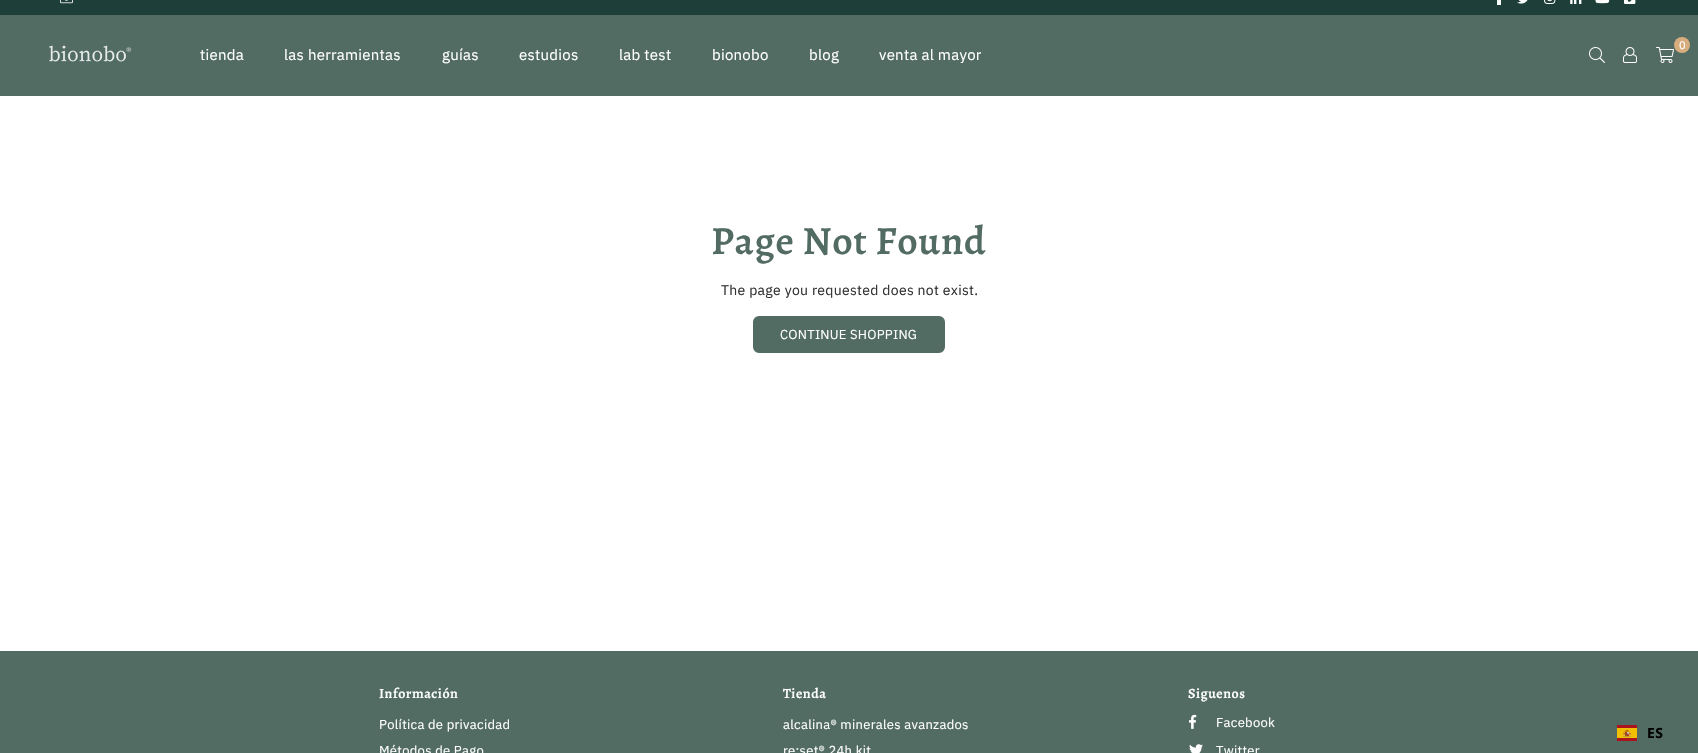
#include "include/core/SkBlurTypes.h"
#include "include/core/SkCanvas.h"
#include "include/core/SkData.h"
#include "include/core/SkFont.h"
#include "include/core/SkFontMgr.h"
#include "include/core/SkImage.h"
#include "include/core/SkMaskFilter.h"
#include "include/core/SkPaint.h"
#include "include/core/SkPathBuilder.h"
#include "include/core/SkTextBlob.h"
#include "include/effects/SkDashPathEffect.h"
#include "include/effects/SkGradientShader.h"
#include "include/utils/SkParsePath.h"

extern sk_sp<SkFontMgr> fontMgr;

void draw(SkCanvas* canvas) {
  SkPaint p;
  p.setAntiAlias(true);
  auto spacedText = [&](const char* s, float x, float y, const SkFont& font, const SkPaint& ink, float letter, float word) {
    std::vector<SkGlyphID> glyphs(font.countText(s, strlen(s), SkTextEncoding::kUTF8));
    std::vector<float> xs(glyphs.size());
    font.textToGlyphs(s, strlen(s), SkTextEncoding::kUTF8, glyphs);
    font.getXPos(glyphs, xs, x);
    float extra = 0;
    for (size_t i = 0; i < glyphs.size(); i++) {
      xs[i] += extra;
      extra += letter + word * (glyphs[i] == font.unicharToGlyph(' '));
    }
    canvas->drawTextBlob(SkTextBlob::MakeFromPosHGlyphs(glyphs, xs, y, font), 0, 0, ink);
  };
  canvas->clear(SK_ColorWHITE);
  p.setColor(SkColorSetRGB(30, 62, 57));
  canvas->drawRect(SkRect::MakeLTRB(0, 0, 1698, 15), p);
  canvas->drawImageRect(SkImages::DeferredFromEncodedData(SkData::MakeFromFileName("images/1.png")), SkRect::MakeLTRB(60, 0, 73, 4), SkSamplingOptions());
  p.setColor(SK_ColorWHITE);
  canvas->drawRect(SkRect::MakeLTRB(1497, 0, 1501, 5), p);
  canvas->drawImageRect(SkImages::DeferredFromEncodedData(SkData::MakeFromFileName("images/2.png")), SkRect::MakeLTRB(1517, 0, 1528, 4), SkSamplingOptions());
  canvas->drawImageRect(SkImages::DeferredFromEncodedData(SkData::MakeFromFileName("images/3.png")), SkRect::MakeLTRB(1544, 0, 1556, 4), SkSamplingOptions());
  canvas->drawImageRect(SkImages::DeferredFromEncodedData(SkData::MakeFromFileName("images/4.png")), SkRect::MakeLTRB(1570, 0, 1582, 4), SkSamplingOptions());
  canvas->drawImageRect(SkImages::DeferredFromEncodedData(SkData::MakeFromFileName("images/5.png")), SkRect::MakeLTRB(1595, 0, 1610, 4), SkSamplingOptions());
  canvas->drawImageRect(SkImages::DeferredFromEncodedData(SkData::MakeFromFileName("images/6.png")), SkRect::MakeLTRB(1624, 0, 1636, 4), SkSamplingOptions());
  p.setColor(SkColorSetRGB(82, 107, 99));
  canvas->drawRect(SkRect::MakeLTRB(0, 15, 1698, 96), p);
  canvas->drawImageRect(SkImages::DeferredFromEncodedData(SkData::MakeFromFileName("images/7.png")), SkRect::MakeLTRB(49, 45, 132, 62), SkSamplingOptions());
  p.setColor(SkColorSetRGB(215, 173, 126));
  canvas->drawCircle(1682, 45, 8, p);
  canvas->drawImageRect(SkImages::DeferredFromEncodedData(SkData::MakeFromFileName("images/8.png")), SkRect::MakeLTRB(1656, 47, 1674, 63), SkSamplingOptions());
  canvas->drawImageRect(SkImages::DeferredFromEncodedData(SkData::MakeFromFileName("images/9.png")), SkRect::MakeLTRB(1589, 47, 1605, 63), SkSamplingOptions());
  canvas->drawImageRect(SkImages::DeferredFromEncodedData(SkData::MakeFromFileName("images/10.png")), SkRect::MakeLTRB(1623, 47, 1637, 63), SkSamplingOptions());
  p.setColor(SkColorSetRGB(82, 107, 99));
  canvas->drawRoundRect(SkRect::MakeLTRB(754, 317, 944, 352), 5, 5, p);
  p.setStyle(SkPaint::kStroke_Style);
  p.setStrokeWidth(2);
  canvas->drawRoundRect(SkRect::MakeLTRB(754, 317, 944, 352), 5, 5, p);
  p.setStyle(SkPaint::kFill_Style);
  canvas->drawRect(SkRect::MakeLTRB(0, 651, 1698, 753), p);
  canvas->drawImageRect(SkImages::DeferredFromEncodedData(SkData::MakeFromFileName("images/11.png")), SkRect::MakeLTRB(1189, 714, 1197, 729), SkSamplingOptions());
  canvas->drawImageRect(SkImages::DeferredFromEncodedData(SkData::MakeFromFileName("images/12.png")), SkRect::MakeLTRB(1189, 744, 1203, 753), SkSamplingOptions());
  canvas->drawImageRect(SkImages::DeferredFromEncodedData(SkData::MakeFromFileName("images/13.png")), SkRect::MakeLTRB(1617, 725, 1637, 741), SkSamplingOptions());
  SkFont font1(fontMgr->matchFamilyStyle("IBM Plex Sans", SkFontStyle::Normal()), 15);
  font1.setSubpixel(true);
  p.setColor(SK_ColorWHITE);
  spacedText("tienda", 200, 60, font1, p, 0.25f, 0);
  spacedText("las herramientas", 284, 60, font1, p, 0.25f, 0);
  spacedText("guías", 442, 60, font1, p, 0.25f, 0);
  spacedText("estudios", 519, 60, font1, p, 0.25f, 0);
  spacedText("lab test", 619, 60, font1, p, 0.25f, 0);
  spacedText("bionobo", 712, 60, font1, p, 0.25f, 0);
  spacedText("blog", 809, 60, font1, p, 0.25f, 0);
  spacedText("venta al mayor", 879, 60, font1, p, 0.25f, 0);
  SkFont font2(fontMgr->matchFamilyStyle("IBM Plex Sans", SkFontStyle::Normal()), 11);
  font2.setSubpixel(true);
  spacedText("0", 1679, 49, font2, p, 0.3f, 0);
  SkFont font3(fontMgr->matchFamilyStyle("Alegreya", SkFontStyle(600, SkFontStyle::kNormal_Width, SkFontStyle::kUpright_Slant)), 40);
  font3.setSubpixel(true);
  p.setColor(SkColorSetRGB(82, 107, 99));
  spacedText("Page Not Found", 711, 254, font3, p, 0.75f, 0);
  SkFont font4(fontMgr->matchFamilyStyle("IBM Plex Sans", SkFontStyle::Normal()), 14);
  font4.setSubpixel(true);
  p.setColor(SkColorSetRGB(51, 51, 51));
  spacedText("The page you requested does not exist.", 721, 295, font4, p, 0.3f, 0);
  SkFont font5(fontMgr->matchFamilyStyle("IBM Plex Sans", SkFontStyle::Normal()), 13);
  font5.setSubpixel(true);
  p.setColor(SK_ColorWHITE);
  spacedText("CONTINUE SHOPPING", 780, 339, font5, p, 0.25f, 0);
  SkFont font6(fontMgr->matchFamilyStyle("Alegreya", SkFontStyle(600, SkFontStyle::kNormal_Width, SkFontStyle::kUpright_Slant)), 14);
  font6.setSubpixel(true);
  spacedText("Información", 379, 698, font6, p, 0.5f, 0);
  spacedText("Política de privacidad", 379, 729, font5, p, 0.3f, 0);
  spacedText("Métodos de Pago", 379, 755, font5, p, 0.3f, 0);
  spacedText("Tienda", 783, 698, font6, p, 0.5f, 0);
  spacedText("alcalina® minerales avanzados", 783, 729, font5, p, 0.3f, 0);
  spacedText("re:set® 24h kit", 783, 755, font5, p, 0.3f, 0);
  spacedText("Siguenos", 1188, 698, font6, p, 0.5f, 0);
  spacedText("Facebook", 1216, 727, font5, p, 0.3f, 0);
  spacedText("Twitter", 1216, 755, font5, p, 0.3f, 0);
  SkFont font7(fontMgr->matchFamilyStyle("Noto Sans", SkFontStyle::Bold()), 14);
  font7.setSubpixel(true);
  p.setColor(SK_ColorBLACK);
  spacedText("ES", 1647, 738, font7, p, 0.3f, 0);
}
